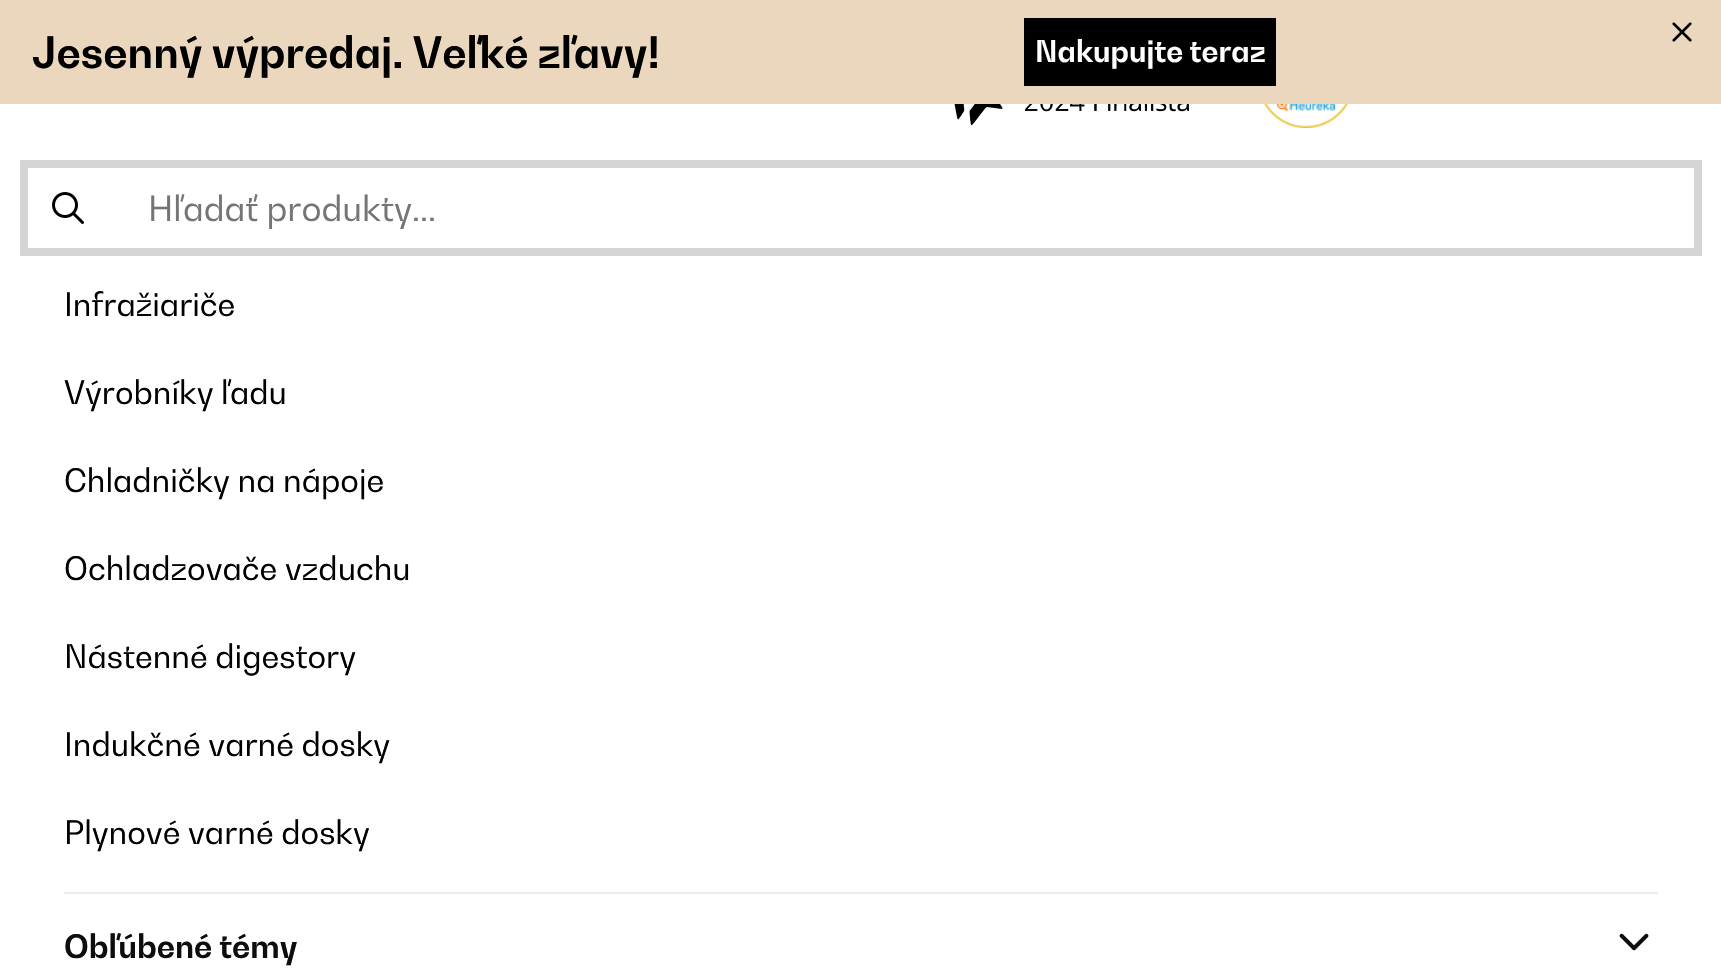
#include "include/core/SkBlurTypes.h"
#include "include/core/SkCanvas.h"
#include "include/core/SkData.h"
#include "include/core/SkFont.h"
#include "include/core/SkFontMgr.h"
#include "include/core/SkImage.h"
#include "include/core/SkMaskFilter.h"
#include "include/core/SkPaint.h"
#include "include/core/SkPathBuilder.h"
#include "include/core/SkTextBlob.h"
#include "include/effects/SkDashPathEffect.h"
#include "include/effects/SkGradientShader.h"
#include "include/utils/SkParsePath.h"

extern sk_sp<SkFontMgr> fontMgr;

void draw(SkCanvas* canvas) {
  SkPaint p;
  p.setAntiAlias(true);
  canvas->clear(SK_ColorWHITE);
  p.setColor(SkColorSetRGB(235, 215, 189));
  canvas->drawRect(SkRect::MakeLTRB(0, 0, 1721, 104), p);
  canvas->drawImageRect(SkImages::DeferredFromEncodedData(SkData::MakeFromFileName("images/1.png")), SkRect::MakeLTRB(1672, 22, 1692, 42), SkSamplingOptions());
  p.setColor(SK_ColorBLACK);
  canvas->drawRect(SkRect::MakeLTRB(1024, 18, 1276, 86), p);
  canvas->drawImageRect(SkImages::DeferredFromEncodedData(SkData::MakeFromFileName("images/2.png")), SkRect::MakeLTRB(954, 104, 1189, 126), SkSamplingOptions());
  canvas->drawImageRect(SkImages::DeferredFromEncodedData(SkData::MakeFromFileName("images/3.png")), SkRect::MakeLTRB(1264, 104, 1348, 128), SkSamplingOptions());
  p.setStyle(SkPaint::kStroke_Style);
  p.setStrokeWidth(8);
  p.setColor(SkColorSetRGB(213, 213, 213));
  canvas->drawRect(SkRect::MakeLTRB(24, 164, 1698, 252), p);
  canvas->drawImageRect(SkImages::DeferredFromEncodedData(SkData::MakeFromFileName("images/4.png")), SkRect::MakeLTRB(52, 192, 84, 224), SkSamplingOptions());
  p.setStyle(SkPaint::kFill_Style);
  p.setColor(SkColorSetRGB(235, 235, 235));
  canvas->drawRect(SkRect::MakeLTRB(64, 892, 1658, 894), p);
  canvas->drawImageRect(SkImages::DeferredFromEncodedData(SkData::MakeFromFileName("images/5.png")), SkRect::MakeLTRB(1619, 933, 1649, 951), SkSamplingOptions());
  SkFont font1(fontMgr->matchFamilyStyle("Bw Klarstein", SkFontStyle::Bold()), 42.75f);
  font1.setSubpixel(true);
  p.setColor(SK_ColorBLACK);
  canvas->drawString("Jesenný výpredaj. Veľké zľavy!", 32, 68, font1, p);
  SkFont font2(fontMgr->matchFamilyStyle("Bw Klarstein", SkFontStyle::Bold()), 29.75f);
  font2.setSubpixel(true);
  p.setColor(SK_ColorWHITE);
  canvas->drawString("Nakupujte teraz", 1035, 62, font2, p);
  SkFont font3(fontMgr->matchFamilyStyle("Bw Klarstein", SkFontStyle::Normal()), 34.5f);
  font3.setSubpixel(true);
  p.setColor(SkColorSetRGB(117, 117, 117));
  canvas->drawString("Hľadať produkty...", 148, 221, font3, p);
  SkFont font4(fontMgr->matchFamilyStyle("Bw Klarstein", SkFontStyle::Normal()), 32);
  font4.setSubpixel(true);
  p.setColor(SK_ColorBLACK);
  canvas->drawString("Infražiariče", 64, 316, font4, p);
  canvas->drawString("Výrobníky ľadu", 64, 404, font4, p);
  canvas->drawString("Chladničky na nápoje", 64, 492, font4, p);
  canvas->drawString("Ochladzovače vzduchu", 64, 580, font4, p);
  canvas->drawString("Nástenné digestory", 64, 668, font4, p);
  canvas->drawString("Indukčné varné dosky", 64, 756, font4, p);
  canvas->drawString("Plynové varné dosky", 64, 844, font4, p);
  SkFont font5(fontMgr->matchFamilyStyle("Bw Klarstein", SkFontStyle::Bold()), 32);
  font5.setSubpixel(true);
  p.setColor(SkColorSetRGB(13, 13, 13));
  canvas->drawString("Obľúbené témy", 64, 958, font5, p);
}
